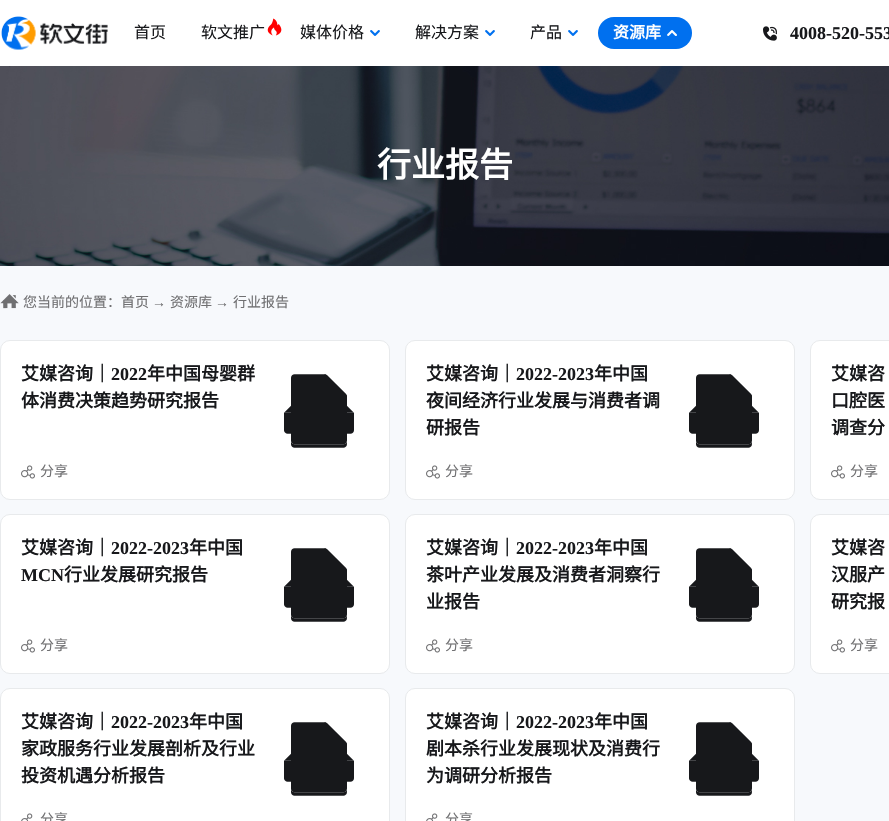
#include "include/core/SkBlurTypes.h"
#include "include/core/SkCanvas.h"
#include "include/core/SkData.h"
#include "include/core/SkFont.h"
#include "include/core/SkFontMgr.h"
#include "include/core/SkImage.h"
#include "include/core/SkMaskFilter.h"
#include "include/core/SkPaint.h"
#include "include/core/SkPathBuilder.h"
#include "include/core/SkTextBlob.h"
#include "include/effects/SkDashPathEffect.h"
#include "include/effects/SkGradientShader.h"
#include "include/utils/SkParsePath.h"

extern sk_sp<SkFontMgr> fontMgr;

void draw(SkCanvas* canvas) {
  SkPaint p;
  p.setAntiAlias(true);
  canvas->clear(SkColorSetRGB(247, 249, 252));
  p.setColor(SK_ColorWHITE);
  canvas->drawRect(SkRect::MakeLTRB(0, 0, 889, 66), p);
  canvas->drawImageRect(SkImages::DeferredFromEncodedData(SkData::MakeFromFileName("images/1.png")), SkRect::MakeLTRB(1, 16, 108, 50), SkSamplingOptions());
  canvas->drawImageRect(SkImages::DeferredFromEncodedData(SkData::MakeFromFileName("images/2.png")), SkRect::MakeLTRB(267, 18, 282, 36), SkSamplingOptions());
  canvas->drawImageRect(SkImages::DeferredFromEncodedData(SkData::MakeFromFileName("images/3.png")), SkRect::MakeLTRB(370, 30, 380, 36), SkSamplingOptions());
  canvas->drawImageRect(SkImages::DeferredFromEncodedData(SkData::MakeFromFileName("images/3.png")), SkRect::MakeLTRB(485, 30, 495, 36), SkSamplingOptions());
  canvas->drawImageRect(SkImages::DeferredFromEncodedData(SkData::MakeFromFileName("images/3.png")), SkRect::MakeLTRB(568, 30, 578, 36), SkSamplingOptions());
  p.setColor(SkColorSetRGB(0, 112, 239));
  canvas->drawRoundRect(SkRect::MakeLTRB(598, 17, 692, 49), 16, 16, p);
  canvas->drawImageRect(SkImages::DeferredFromEncodedData(SkData::MakeFromFileName("images/4.png")), SkRect::MakeLTRB(667, 30, 677, 36), SkSamplingOptions());
  canvas->drawImageRect(SkImages::DeferredFromEncodedData(SkData::MakeFromFileName("images/5.png")), SkRect::MakeLTRB(763, 26, 777, 41), SkSamplingOptions());
  canvas->drawImageRect(SkImages::DeferredFromEncodedData(SkData::MakeFromFileName("images/6.png")), SkRect::MakeLTRB(0, 66, 889, 266), SkSamplingOptions());
  canvas->drawImageRect(SkImages::DeferredFromEncodedData(SkData::MakeFromFileName("images/7.png")), SkRect::MakeLTRB(0, 294, 19, 309), SkSamplingOptions());
  p.setColor(SK_ColorWHITE);
  canvas->drawRoundRect(SkRect::MakeLTRB(0.5f, 340.5f, 389.5f, 499.5f), 9.5f, 9.5f, p);
  p.setStyle(SkPaint::kStroke_Style);
  p.setStrokeWidth(1);
  p.setColor(SkColorSetRGB(232, 234, 236));
  canvas->drawRoundRect(SkRect::MakeLTRB(0.5f, 340.5f, 389.5f, 499.5f), 9.5f, 9.5f, p);
  canvas->drawImageRect(SkImages::DeferredFromEncodedData(SkData::MakeFromFileName("images/8.png")), SkRect::MakeLTRB(21, 465, 35, 479), SkSamplingOptions());
  canvas->drawImageRect(SkImages::DeferredFromEncodedData(SkData::MakeFromFileName("images/9.png")), SkRect::MakeLTRB(284, 374, 354, 448), SkSamplingOptions());
  p.setStyle(SkPaint::kFill_Style);
  p.setColor(SK_ColorWHITE);
  canvas->drawRoundRect(SkRect::MakeLTRB(405.5f, 340.5f, 794.5f, 499.5f), 9.5f, 9.5f, p);
  p.setStyle(SkPaint::kStroke_Style);
  p.setColor(SkColorSetRGB(232, 234, 236));
  canvas->drawRoundRect(SkRect::MakeLTRB(405.5f, 340.5f, 794.5f, 499.5f), 9.5f, 9.5f, p);
  canvas->drawImageRect(SkImages::DeferredFromEncodedData(SkData::MakeFromFileName("images/8.png")), SkRect::MakeLTRB(426, 465, 440, 479), SkSamplingOptions());
  canvas->drawImageRect(SkImages::DeferredFromEncodedData(SkData::MakeFromFileName("images/9.png")), SkRect::MakeLTRB(689, 374, 759, 448), SkSamplingOptions());
  p.setStyle(SkPaint::kFill_Style);
  p.setColor(SK_ColorWHITE);
  canvas->drawRoundRect(SkRect::MakeLTRB(810.5f, 340.5f, 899.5f, 499.5f), 9.5f, 9.5f, p);
  p.setStyle(SkPaint::kStroke_Style);
  p.setColor(SkColorSetRGB(232, 234, 236));
  canvas->drawRoundRect(SkRect::MakeLTRB(810.5f, 340.5f, 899.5f, 499.5f), 9.5f, 9.5f, p);
  canvas->drawImageRect(SkImages::DeferredFromEncodedData(SkData::MakeFromFileName("images/8.png")), SkRect::MakeLTRB(831, 465, 845, 479), SkSamplingOptions());
  p.setStyle(SkPaint::kFill_Style);
  p.setColor(SK_ColorWHITE);
  canvas->drawRoundRect(SkRect::MakeLTRB(0.5f, 514.5f, 389.5f, 673.5f), 9.5f, 9.5f, p);
  p.setStyle(SkPaint::kStroke_Style);
  p.setColor(SkColorSetRGB(232, 234, 236));
  canvas->drawRoundRect(SkRect::MakeLTRB(0.5f, 514.5f, 389.5f, 673.5f), 9.5f, 9.5f, p);
  canvas->drawImageRect(SkImages::DeferredFromEncodedData(SkData::MakeFromFileName("images/8.png")), SkRect::MakeLTRB(21, 639, 35, 653), SkSamplingOptions());
  canvas->drawImageRect(SkImages::DeferredFromEncodedData(SkData::MakeFromFileName("images/9.png")), SkRect::MakeLTRB(284, 548, 354, 622), SkSamplingOptions());
  p.setStyle(SkPaint::kFill_Style);
  p.setColor(SK_ColorWHITE);
  canvas->drawRoundRect(SkRect::MakeLTRB(405.5f, 514.5f, 794.5f, 673.5f), 9.5f, 9.5f, p);
  p.setStyle(SkPaint::kStroke_Style);
  p.setColor(SkColorSetRGB(232, 234, 236));
  canvas->drawRoundRect(SkRect::MakeLTRB(405.5f, 514.5f, 794.5f, 673.5f), 9.5f, 9.5f, p);
  canvas->drawImageRect(SkImages::DeferredFromEncodedData(SkData::MakeFromFileName("images/8.png")), SkRect::MakeLTRB(426, 639, 440, 653), SkSamplingOptions());
  canvas->drawImageRect(SkImages::DeferredFromEncodedData(SkData::MakeFromFileName("images/9.png")), SkRect::MakeLTRB(689, 548, 759, 622), SkSamplingOptions());
  p.setStyle(SkPaint::kFill_Style);
  p.setColor(SK_ColorWHITE);
  canvas->drawRoundRect(SkRect::MakeLTRB(810.5f, 514.5f, 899.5f, 673.5f), 9.5f, 9.5f, p);
  p.setStyle(SkPaint::kStroke_Style);
  p.setColor(SkColorSetRGB(232, 234, 236));
  canvas->drawRoundRect(SkRect::MakeLTRB(810.5f, 514.5f, 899.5f, 673.5f), 9.5f, 9.5f, p);
  canvas->drawImageRect(SkImages::DeferredFromEncodedData(SkData::MakeFromFileName("images/8.png")), SkRect::MakeLTRB(831, 639, 845, 653), SkSamplingOptions());
  p.setStyle(SkPaint::kFill_Style);
  p.setColor(SK_ColorWHITE);
  canvas->drawRoundRect(SkRect::MakeLTRB(0.5f, 688.5f, 389.5f, 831.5f), 9.5f, 9.5f, p);
  p.setStyle(SkPaint::kStroke_Style);
  p.setColor(SkColorSetRGB(232, 234, 236));
  canvas->drawRoundRect(SkRect::MakeLTRB(0.5f, 688.5f, 389.5f, 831.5f), 9.5f, 9.5f, p);
  canvas->drawImageRect(SkImages::DeferredFromEncodedData(SkData::MakeFromFileName("images/10.png")), SkRect::MakeLTRB(21, 813, 33, 821), SkSamplingOptions());
  canvas->drawImageRect(SkImages::DeferredFromEncodedData(SkData::MakeFromFileName("images/9.png")), SkRect::MakeLTRB(284, 722, 354, 796), SkSamplingOptions());
  p.setStyle(SkPaint::kFill_Style);
  p.setColor(SK_ColorWHITE);
  canvas->drawRoundRect(SkRect::MakeLTRB(405.5f, 688.5f, 794.5f, 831.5f), 9.5f, 9.5f, p);
  p.setStyle(SkPaint::kStroke_Style);
  p.setColor(SkColorSetRGB(232, 234, 236));
  canvas->drawRoundRect(SkRect::MakeLTRB(405.5f, 688.5f, 794.5f, 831.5f), 9.5f, 9.5f, p);
  canvas->drawImageRect(SkImages::DeferredFromEncodedData(SkData::MakeFromFileName("images/10.png")), SkRect::MakeLTRB(426, 813, 438, 821), SkSamplingOptions());
  canvas->drawImageRect(SkImages::DeferredFromEncodedData(SkData::MakeFromFileName("images/9.png")), SkRect::MakeLTRB(689, 722, 759, 796), SkSamplingOptions());
  SkFont font1(fontMgr->matchFamilyStyle("Noto Sans CJK SC", SkFontStyle::Normal()), 16);
  font1.setSubpixel(true);
  p.setStyle(SkPaint::kFill_Style);
  p.setColor(SkColorSetRGB(23, 24, 27));
  canvas->drawString("首页", 134, 38, font1, p);
  canvas->drawString("软文推广", 201, 38, font1, p);
  canvas->drawString("媒体价格", 300, 38, font1, p);
  canvas->drawString("解决方案", 415, 38, font1, p);
  canvas->drawString("产品", 530, 38, font1, p);
  SkFont font2(fontMgr->matchFamilyStyle("Noto Sans CJK SC", SkFontStyle::Bold()), 16);
  font2.setSubpixel(true);
  p.setColor(SK_ColorWHITE);
  canvas->drawString("资源库", 613, 38, font2, p);
  SkFont font3(fontMgr->matchFamilyStyle("Liberation Serif", SkFontStyle::Bold()), 18);
  font3.setSubpixel(true);
  p.setColor(SkColorSetRGB(23, 24, 27));
  canvas->drawString("4008-520-553", 790, 39, font3, p);
  SkFont font4(fontMgr->matchFamilyStyle("Noto Sans CJK SC", SkFontStyle::Bold()), 34);
  font4.setSubpixel(true);
  p.setColor(SK_ColorWHITE);
  canvas->drawString("行业报告", 377, 177, font4, p);
  SkFont font5(fontMgr->matchFamilyStyle("Noto Sans CJK SC", SkFontStyle::Normal()), 14);
  font5.setSubpixel(true);
  p.setColor(SkColorSetRGB(112, 112, 114));
  canvas->drawString("您当前的位置：首页", 23, 307, font5, p);
  SkFont font6(fontMgr->matchFamilyStyle("Liberation Serif", SkFontStyle::Normal()), 14);
  font6.setSubpixel(true);
  canvas->drawString("→", 152, 307, font6, p);
  canvas->drawString("资源库", 170, 307, font5, p);
  canvas->drawString("→", 215, 307, font6, p);
  canvas->drawString("行业报告", 233, 307, font5, p);
  SkFont font7(fontMgr->matchFamilyStyle("Noto Sans CJK SC", SkFontStyle::Bold()), 18);
  font7.setSubpixel(true);
  p.setColor(SkColorSetRGB(23, 24, 27));
  canvas->drawString("艾媒咨询｜", 21, 380, font7, p);
  canvas->drawString("2022", 111, 380, font3, p);
  canvas->drawString("年中国母婴群", 147, 380, font7, p);
  canvas->drawString("体消费决策趋势研究报告", 21, 407, font7, p);
  p.setColor(SkColorSetRGB(112, 112, 114));
  canvas->drawString("分享", 40, 476, font5, p);
  p.setColor(SkColorSetRGB(23, 24, 27));
  canvas->drawString("艾媒咨询｜", 426, 380, font7, p);
  canvas->drawString("2022-2023", 516, 380, font3, p);
  canvas->drawString("年中国", 594, 380, font7, p);
  canvas->drawString("夜间经济行业发展与消费者调", 426, 407, font7, p);
  canvas->drawString("研报告", 426, 434, font7, p);
  p.setColor(SkColorSetRGB(112, 112, 114));
  canvas->drawString("分享", 445, 476, font5, p);
  p.setColor(SkColorSetRGB(23, 24, 27));
  canvas->drawString("艾媒咨", 831, 380, font7, p);
  canvas->drawString("口腔医", 831, 407, font7, p);
  canvas->drawString("调查分", 831, 434, font7, p);
  p.setColor(SkColorSetRGB(112, 112, 114));
  canvas->drawString("分享", 850, 476, font5, p);
  p.setColor(SkColorSetRGB(23, 24, 27));
  canvas->drawString("艾媒咨询｜", 21, 554, font7, p);
  canvas->drawString("2022-2023", 111, 554, font3, p);
  canvas->drawString("年中国", 189, 554, font7, p);
  canvas->drawString("MCN", 21, 581, font3, p);
  canvas->drawString("行业发展研究报告", 64, 581, font7, p);
  p.setColor(SkColorSetRGB(112, 112, 114));
  canvas->drawString("分享", 40, 650, font5, p);
  p.setColor(SkColorSetRGB(23, 24, 27));
  canvas->drawString("艾媒咨询｜", 426, 554, font7, p);
  canvas->drawString("2022-2023", 516, 554, font3, p);
  canvas->drawString("年中国", 594, 554, font7, p);
  canvas->drawString("茶叶产业发展及消费者洞察行", 426, 581, font7, p);
  canvas->drawString("业报告", 426, 608, font7, p);
  p.setColor(SkColorSetRGB(112, 112, 114));
  canvas->drawString("分享", 445, 650, font5, p);
  p.setColor(SkColorSetRGB(23, 24, 27));
  canvas->drawString("艾媒咨", 831, 554, font7, p);
  canvas->drawString("汉服产", 831, 581, font7, p);
  canvas->drawString("研究报", 831, 608, font7, p);
  p.setColor(SkColorSetRGB(112, 112, 114));
  canvas->drawString("分享", 850, 650, font5, p);
  p.setColor(SkColorSetRGB(23, 24, 27));
  canvas->drawString("艾媒咨询｜", 21, 728, font7, p);
  canvas->drawString("2022-2023", 111, 728, font3, p);
  canvas->drawString("年中国", 189, 728, font7, p);
  canvas->drawString("家政服务行业发展剖析及行业", 21, 755, font7, p);
  canvas->drawString("投资机遇分析报告", 21, 782, font7, p);
  p.setColor(SkColorSetRGB(112, 112, 114));
  canvas->drawString("分享", 40, 824, font5, p);
  p.setColor(SkColorSetRGB(23, 24, 27));
  canvas->drawString("艾媒咨询｜", 426, 728, font7, p);
  canvas->drawString("2022-2023", 516, 728, font3, p);
  canvas->drawString("年中国", 594, 728, font7, p);
  canvas->drawString("剧本杀行业发展现状及消费行", 426, 755, font7, p);
  canvas->drawString("为调研分析报告", 426, 782, font7, p);
  p.setColor(SkColorSetRGB(112, 112, 114));
  canvas->drawString("分享", 445, 824, font5, p);
}
